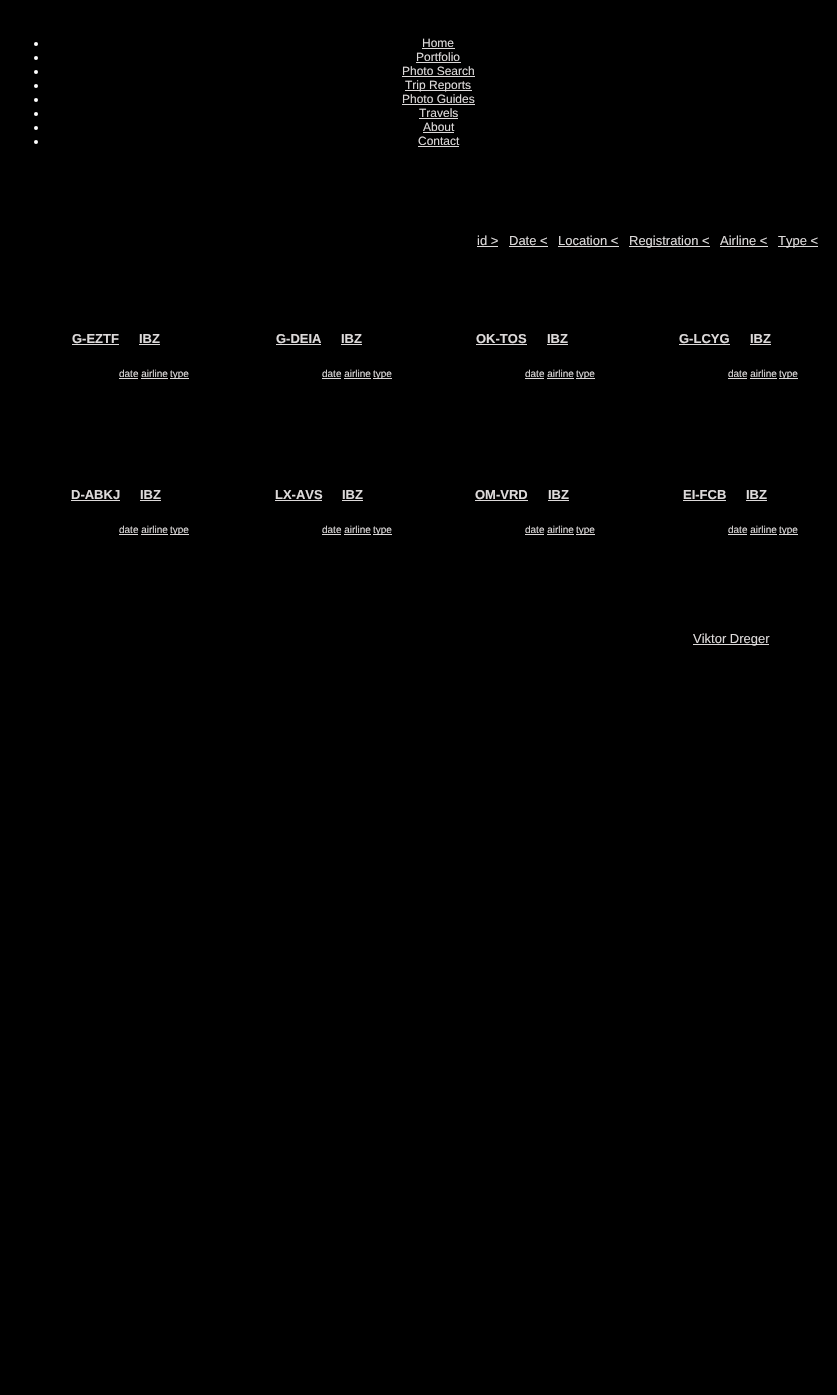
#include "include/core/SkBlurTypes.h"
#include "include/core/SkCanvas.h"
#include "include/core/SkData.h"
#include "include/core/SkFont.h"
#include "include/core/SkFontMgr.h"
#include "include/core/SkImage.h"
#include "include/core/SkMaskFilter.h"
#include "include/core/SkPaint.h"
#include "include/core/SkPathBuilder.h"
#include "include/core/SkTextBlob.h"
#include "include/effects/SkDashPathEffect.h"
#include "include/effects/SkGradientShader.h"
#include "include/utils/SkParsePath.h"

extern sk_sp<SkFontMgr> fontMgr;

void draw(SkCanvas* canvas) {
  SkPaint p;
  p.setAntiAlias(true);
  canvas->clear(SK_ColorBLACK);
  p.setColor(SK_ColorWHITE);
  canvas->drawCircle(36, 44, 2, p);
  p.setColor(SkColorSetRGB(221, 218, 218));
  canvas->drawRect(SkRect::MakeLTRB(422, 48, 455, 49), p);
  p.setColor(SK_ColorWHITE);
  canvas->drawCircle(36, 58, 2, p);
  p.setColor(SkColorSetRGB(221, 218, 218));
  canvas->drawRect(SkRect::MakeLTRB(416, 62, 461, 63), p);
  p.setColor(SK_ColorWHITE);
  canvas->drawCircle(36, 72, 2, p);
  p.setColor(SkColorSetRGB(221, 218, 218));
  canvas->drawRect(SkRect::MakeLTRB(402, 76, 475, 77), p);
  p.setColor(SK_ColorWHITE);
  canvas->drawCircle(36, 86, 2, p);
  p.setColor(SkColorSetRGB(221, 218, 218));
  canvas->drawRect(SkRect::MakeLTRB(405, 90, 472, 91), p);
  p.setColor(SK_ColorWHITE);
  canvas->drawCircle(36, 100, 2, p);
  p.setColor(SkColorSetRGB(221, 218, 218));
  canvas->drawRect(SkRect::MakeLTRB(402, 104, 475, 105), p);
  p.setColor(SK_ColorWHITE);
  canvas->drawCircle(36, 114, 2, p);
  p.setColor(SkColorSetRGB(221, 218, 218));
  canvas->drawRect(SkRect::MakeLTRB(419, 118, 458, 119), p);
  p.setColor(SK_ColorWHITE);
  canvas->drawCircle(36, 128, 2, p);
  p.setColor(SkColorSetRGB(221, 218, 218));
  canvas->drawRect(SkRect::MakeLTRB(423, 132, 454, 133), p);
  p.setColor(SK_ColorWHITE);
  canvas->drawCircle(36, 142, 2, p);
  p.setColor(SkColorSetRGB(221, 218, 218));
  canvas->drawRect(SkRect::MakeLTRB(418, 146, 459, 147), p);
  canvas->drawRect(SkRect::MakeLTRB(477, 246, 498, 247), p);
  canvas->drawRect(SkRect::MakeLTRB(509, 246, 548, 247), p);
  canvas->drawRect(SkRect::MakeLTRB(558, 246, 619, 247), p);
  canvas->drawRect(SkRect::MakeLTRB(629, 246, 710, 247), p);
  canvas->drawRect(SkRect::MakeLTRB(720, 246, 768, 247), p);
  canvas->drawRect(SkRect::MakeLTRB(778, 246, 818, 247), p);
  canvas->drawRect(SkRect::MakeLTRB(72, 344, 119, 345), p);
  canvas->drawRect(SkRect::MakeLTRB(139, 344, 160, 345), p);
  canvas->drawRect(SkRect::MakeLTRB(119, 378, 138, 379), p);
  canvas->drawRect(SkRect::MakeLTRB(141, 378, 168, 379), p);
  canvas->drawRect(SkRect::MakeLTRB(170, 378, 189, 379), p);
  canvas->drawRect(SkRect::MakeLTRB(276, 344, 321, 345), p);
  canvas->drawRect(SkRect::MakeLTRB(341, 344, 362, 345), p);
  canvas->drawRect(SkRect::MakeLTRB(322, 378, 341, 379), p);
  canvas->drawRect(SkRect::MakeLTRB(344, 378, 371, 379), p);
  canvas->drawRect(SkRect::MakeLTRB(373, 378, 392, 379), p);
  canvas->drawRect(SkRect::MakeLTRB(476, 344, 527, 345), p);
  canvas->drawRect(SkRect::MakeLTRB(547, 344, 568, 345), p);
  canvas->drawRect(SkRect::MakeLTRB(525, 378, 544, 379), p);
  canvas->drawRect(SkRect::MakeLTRB(547, 378, 574, 379), p);
  canvas->drawRect(SkRect::MakeLTRB(576, 378, 595, 379), p);
  canvas->drawRect(SkRect::MakeLTRB(679, 344, 730, 345), p);
  canvas->drawRect(SkRect::MakeLTRB(750, 344, 771, 345), p);
  canvas->drawRect(SkRect::MakeLTRB(728, 378, 747, 379), p);
  canvas->drawRect(SkRect::MakeLTRB(750, 378, 777, 379), p);
  canvas->drawRect(SkRect::MakeLTRB(779, 378, 798, 379), p);
  canvas->drawRect(SkRect::MakeLTRB(71, 500, 120, 501), p);
  canvas->drawRect(SkRect::MakeLTRB(140, 500, 161, 501), p);
  canvas->drawRect(SkRect::MakeLTRB(119, 534, 138, 535), p);
  canvas->drawRect(SkRect::MakeLTRB(141, 534, 168, 535), p);
  canvas->drawRect(SkRect::MakeLTRB(170, 534, 189, 535), p);
  canvas->drawRect(SkRect::MakeLTRB(275, 500, 322, 501), p);
  canvas->drawRect(SkRect::MakeLTRB(342, 500, 363, 501), p);
  canvas->drawRect(SkRect::MakeLTRB(322, 534, 341, 535), p);
  canvas->drawRect(SkRect::MakeLTRB(344, 534, 371, 535), p);
  canvas->drawRect(SkRect::MakeLTRB(373, 534, 392, 535), p);
  canvas->drawRect(SkRect::MakeLTRB(475, 500, 528, 501), p);
  canvas->drawRect(SkRect::MakeLTRB(548, 500, 569, 501), p);
  canvas->drawRect(SkRect::MakeLTRB(525, 534, 544, 535), p);
  canvas->drawRect(SkRect::MakeLTRB(547, 534, 574, 535), p);
  canvas->drawRect(SkRect::MakeLTRB(576, 534, 595, 535), p);
  canvas->drawRect(SkRect::MakeLTRB(683, 500, 726, 501), p);
  canvas->drawRect(SkRect::MakeLTRB(746, 500, 767, 501), p);
  canvas->drawRect(SkRect::MakeLTRB(728, 534, 747, 535), p);
  canvas->drawRect(SkRect::MakeLTRB(750, 534, 777, 535), p);
  canvas->drawRect(SkRect::MakeLTRB(779, 534, 798, 535), p);
  canvas->drawRect(SkRect::MakeLTRB(693, 644, 769, 645), p);
  SkFont font1(fontMgr->matchFamilyStyle("Liberation Sans", SkFontStyle::Normal()), 12);
  font1.setSubpixel(true);
  canvas->drawString("Home", 422, 47, font1, p);
  canvas->drawString("Portfolio", 416, 61, font1, p);
  canvas->drawString("Photo Search", 402, 75, font1, p);
  canvas->drawString("Trip Reports", 405, 89, font1, p);
  canvas->drawString("Photo Guides", 402, 103, font1, p);
  canvas->drawString("Travels", 419, 117, font1, p);
  canvas->drawString("About", 423, 131, font1, p);
  canvas->drawString("Contact", 418, 145, font1, p);
  SkFont font2(fontMgr->matchFamilyStyle("Liberation Sans", SkFontStyle::Normal()), 13);
  font2.setSubpixel(true);
  canvas->drawString("id >", 477, 245, font2, p);
  canvas->drawString("Date <", 509, 245, font2, p);
  canvas->drawString("Location <", 558, 245, font2, p);
  canvas->drawString("Registration <", 629, 245, font2, p);
  canvas->drawString("Airline <", 720, 245, font2, p);
  canvas->drawString("Type <", 778, 245, font2, p);
  SkFont font3(fontMgr->matchFamilyStyle("Liberation Sans", SkFontStyle::Bold()), 13);
  font3.setSubpixel(true);
  canvas->drawString("G-EZTF", 72, 343, font3, p);
  canvas->drawString("IBZ", 139, 343, font3, p);
  SkFont font4(fontMgr->matchFamilyStyle("Liberation Sans", SkFontStyle::Normal()), 10);
  font4.setSubpixel(true);
  canvas->drawString("date airline", 119, 377, font4, p);
  canvas->drawString("type", 170, 377, font4, p);
  canvas->drawString("G-DEIA", 276, 343, font3, p);
  canvas->drawString("IBZ", 341, 343, font3, p);
  canvas->drawString("date airline", 322, 377, font4, p);
  canvas->drawString("type", 373, 377, font4, p);
  canvas->drawString("OK-TOS", 476, 343, font3, p);
  canvas->drawString("IBZ", 547, 343, font3, p);
  canvas->drawString("date airline", 525, 377, font4, p);
  canvas->drawString("type", 576, 377, font4, p);
  canvas->drawString("G-LCYG", 679, 343, font3, p);
  canvas->drawString("IBZ", 750, 343, font3, p);
  canvas->drawString("date airline", 728, 377, font4, p);
  canvas->drawString("type", 779, 377, font4, p);
  canvas->drawString("D-ABKJ", 71, 499, font3, p);
  canvas->drawString("IBZ", 140, 499, font3, p);
  canvas->drawString("date airline", 119, 533, font4, p);
  canvas->drawString("type", 170, 533, font4, p);
  canvas->drawString("LX-AVS", 275, 499, font3, p);
  canvas->drawString("IBZ", 342, 499, font3, p);
  canvas->drawString("date airline", 322, 533, font4, p);
  canvas->drawString("type", 373, 533, font4, p);
  canvas->drawString("OM-VRD", 475, 499, font3, p);
  canvas->drawString("IBZ", 548, 499, font3, p);
  canvas->drawString("date airline", 525, 533, font4, p);
  canvas->drawString("type", 576, 533, font4, p);
  canvas->drawString("EI-FCB", 683, 499, font3, p);
  canvas->drawString("IBZ", 746, 499, font3, p);
  canvas->drawString("date airline", 728, 533, font4, p);
  canvas->drawString("type", 779, 533, font4, p);
  canvas->drawString("Viktor Dreger", 693, 643, font2, p);
}
